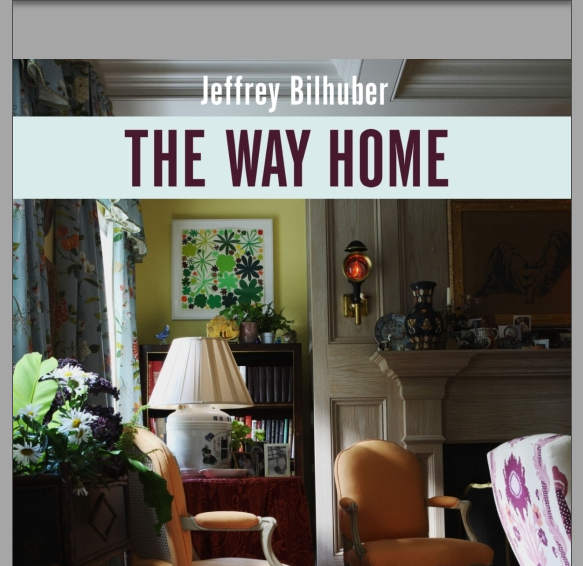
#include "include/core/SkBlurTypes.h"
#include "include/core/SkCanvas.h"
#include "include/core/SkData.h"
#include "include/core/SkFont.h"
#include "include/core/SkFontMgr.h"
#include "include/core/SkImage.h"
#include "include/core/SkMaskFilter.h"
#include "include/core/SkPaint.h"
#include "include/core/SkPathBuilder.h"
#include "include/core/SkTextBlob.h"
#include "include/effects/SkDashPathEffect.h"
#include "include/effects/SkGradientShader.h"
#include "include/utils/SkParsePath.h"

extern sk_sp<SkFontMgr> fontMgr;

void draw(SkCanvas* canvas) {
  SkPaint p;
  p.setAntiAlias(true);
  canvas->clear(SkColorSetRGB(166, 166, 166));
  p.setStyle(SkPaint::kStroke_Style);
  p.setStrokeWidth(1);
  p.setColor(SkColorSetRGB(78, 78, 78));
  canvas->drawRect(SkRect::MakeLTRB(12.5f, 0.5f, 571.5f, 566.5f), p);
  canvas->save();
  canvas->clipRect(SkRect::MakeLTRB(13, 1, 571, 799));
  p.setStyle(SkPaint::kFill_Style);
  p.setColor(SkColorSetARGB(102, 0, 0, 0));
  p.setMaskFilter(SkMaskFilter::MakeBlur(kNormal_SkBlurStyle, 2.5f));
  canvas->drawRect(SkRect::MakeLTRB(11, -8, 573, 5), p);
  p.setMaskFilter(nullptr);
  canvas->restore();
  canvas->drawImageRect(SkImages::DeferredFromEncodedData(SkData::MakeFromFileName("images/1.png")), SkRect::MakeLTRB(13, 59, 571, 566), SkSamplingOptions());
}
